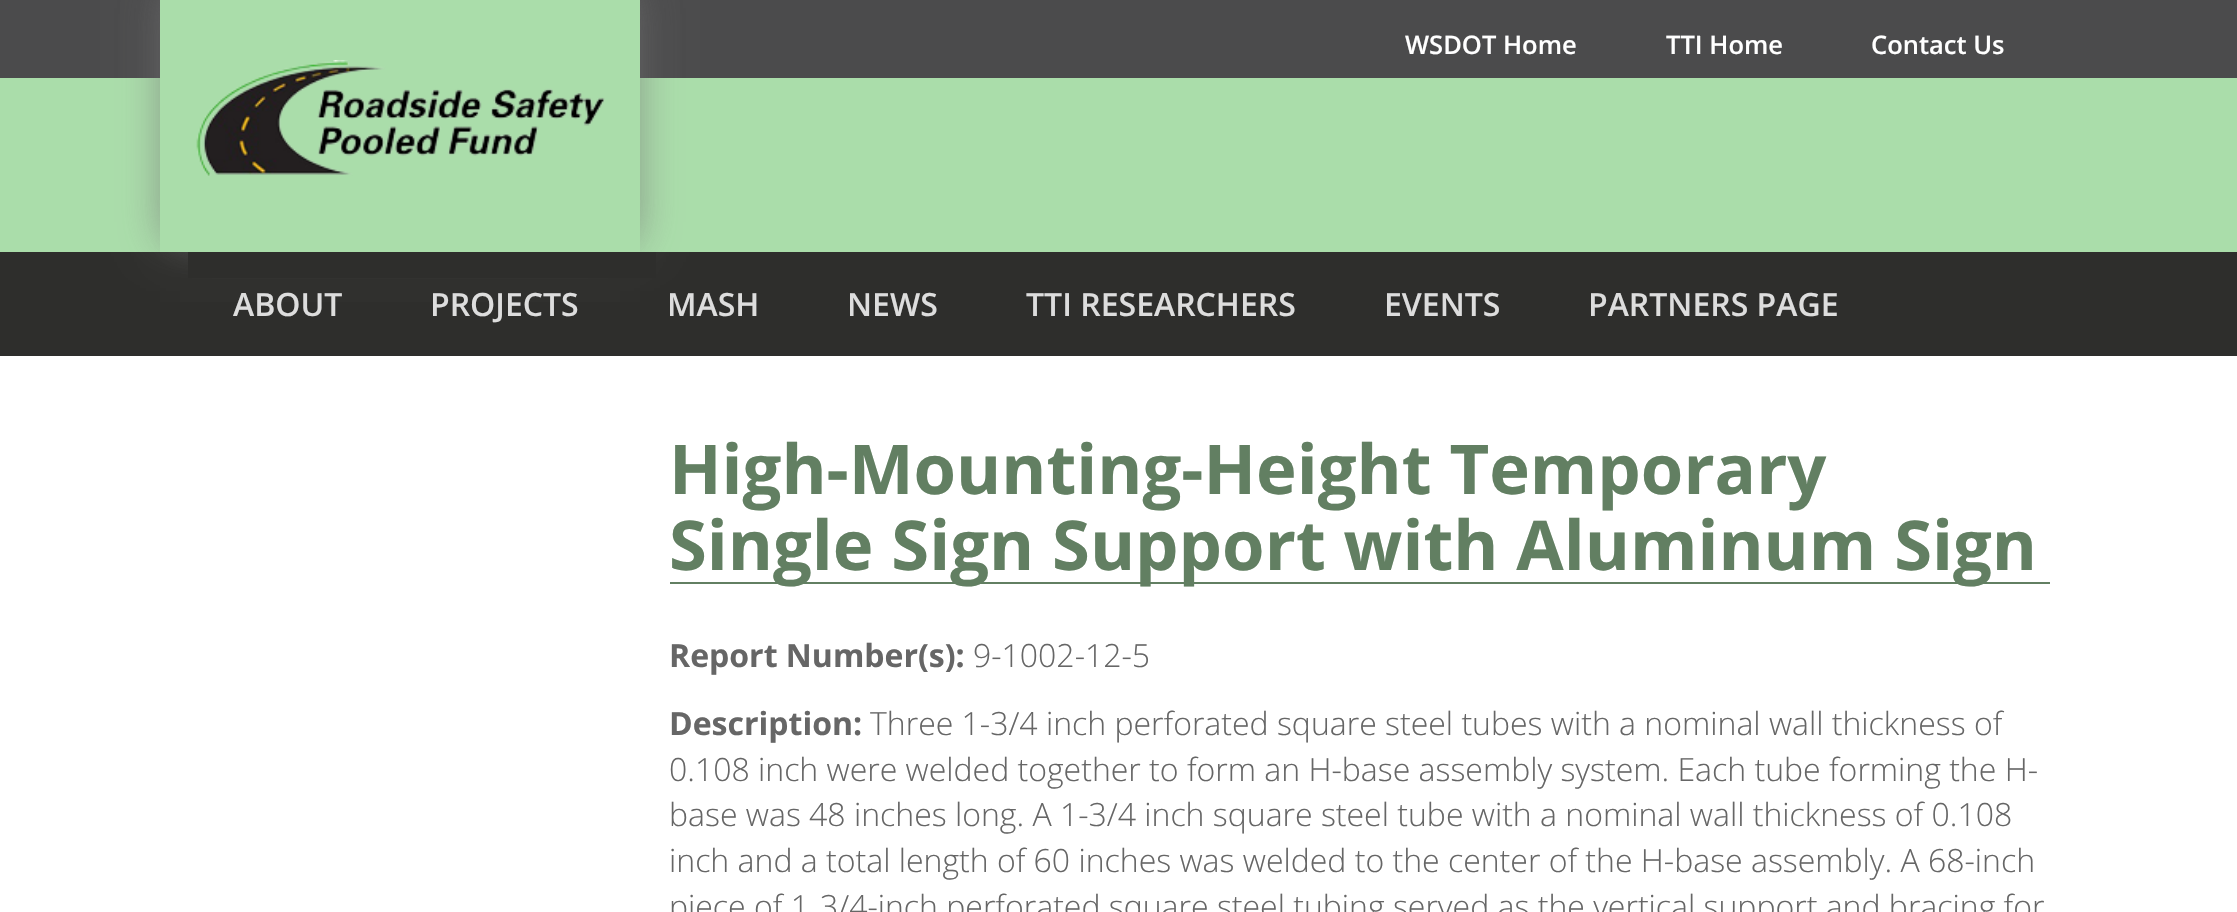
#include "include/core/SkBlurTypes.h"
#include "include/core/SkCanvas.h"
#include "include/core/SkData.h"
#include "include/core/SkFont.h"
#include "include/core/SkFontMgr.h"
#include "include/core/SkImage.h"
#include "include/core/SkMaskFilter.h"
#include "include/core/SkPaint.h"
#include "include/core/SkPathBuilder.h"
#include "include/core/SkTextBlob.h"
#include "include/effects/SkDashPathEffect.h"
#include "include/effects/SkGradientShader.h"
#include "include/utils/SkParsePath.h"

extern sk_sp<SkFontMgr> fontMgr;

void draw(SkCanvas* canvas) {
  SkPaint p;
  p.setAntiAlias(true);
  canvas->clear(SK_ColorWHITE);
  p.setColor(SkColorSetRGB(170, 221, 170));
  canvas->drawRect(SkRect::MakeLTRB(0, 78, 2237, 252), p);
  p.setColor(SkColorSetRGB(75, 75, 76));
  canvas->drawRect(SkRect::MakeLTRB(0, 0, 2237, 78), p);
  p.setColor(SkColorSetRGB(46, 46, 44));
  canvas->drawRect(SkRect::MakeLTRB(0, 252, 2237, 356), p);
  p.setColor(SkColorSetARGB(128, 115, 115, 115));
  p.setMaskFilter(SkMaskFilter::MakeBlur(kNormal_SkBlurStyle, 20));
  canvas->drawRect(SkRect::MakeLTRB(180, -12, 640, 242), p);
  p.setMaskFilter(nullptr);
  p.setMaskFilter(SkMaskFilter::MakeBlur(kNormal_SkBlurStyle, 20));
  canvas->drawRect(SkRect::MakeLTRB(160, -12, 620, 242), p);
  p.setMaskFilter(nullptr);
  p.setColor(SkColorSetRGB(170, 221, 170));
  canvas->drawRect(SkRect::MakeLTRB(160, 0, 640, 252), p);
  canvas->drawImageRect(SkImages::DeferredFromEncodedData(SkData::MakeFromFileName("images/1.png")), SkRect::MakeLTRB(196, 60, 605, 176), SkSamplingOptions());
  p.setColor(SkColorSetRGB(46, 46, 44));
  canvas->drawRect(SkRect::MakeLTRB(188, 252, 656, 278), p);
  p.setColor(SkColorSetRGB(98, 127, 98));
  canvas->drawRect(SkRect::MakeLTRB(670, 582, 2050, 584), p);
  SkFont font1(fontMgr->matchFamilyStyle("Open Sans", SkFontStyle(600, SkFontStyle::kNormal_Width, SkFontStyle::kUpright_Slant)), 25.5f);
  font1.setSubpixel(true);
  p.setColor(SK_ColorWHITE);
  canvas->drawString("WSDOT Home", 1405, 54, font1, p);
  canvas->drawString("TTI Home", 1666, 54, font1, p);
  canvas->drawString("Contact Us", 1871, 54, font1, p);
  SkFont font2(fontMgr->matchFamilyStyle("Open Sans", SkFontStyle(600, SkFontStyle::kNormal_Width, SkFontStyle::kUpright_Slant)), 32);
  font2.setSubpixel(true);
  p.setColor(SkColorSetRGB(221, 221, 221));
  canvas->drawString("ABOUT", 233, 316, font2, p);
  canvas->drawString("PROJECTS", 430, 316, font2, p);
  canvas->drawString("MASH", 667, 316, font2, p);
  canvas->drawString("NEWS", 847, 316, font2, p);
  canvas->drawString("TTI RESEARCHERS", 1026, 316, font2, p);
  canvas->drawString("EVENTS", 1384, 316, font2, p);
  canvas->drawString("PARTNERS PAGE", 1588, 316, font2, p);
  SkFont font3(fontMgr->matchFamilyStyle("Open Sans", SkFontStyle::Bold()), 68.75f);
  font3.setSubpixel(true);
  p.setColor(SkColorSetRGB(98, 127, 98));
  canvas->drawString("High-Mounting-Height Temporary", 669, 494, font3, p);
  canvas->drawString("Single Sign Support with Aluminum Sign", 669, 570, font3, p);
  SkFont font4(fontMgr->matchFamilyStyle("Open Sans", SkFontStyle::Bold()), 32);
  font4.setSubpixel(true);
  p.setColor(SkColorSetRGB(102, 102, 102));
  canvas->drawString("Report Number(s):", 669, 667, font4, p);
  SkFont font5(fontMgr->matchFamilyStyle("Open Sans", SkFontStyle(300, SkFontStyle::kNormal_Width, SkFontStyle::kUpright_Slant)), 32);
  font5.setSubpixel(true);
  canvas->drawString("9-1002-12-5", 973, 667, font5, p);
  canvas->drawString("Description:", 669, 735, font4, p);
  canvas->drawString("Three 1-3/4 inch perforated square steel tubes with a nominal wall thickness of", 870, 735, font5, p);
  canvas->drawString("0.108 inch were welded together to form an H-base assembly system. Each tube forming the H-", 669, 781, font5, p);
  canvas->drawString("base was 48 inches long. A 1-3/4 inch square steel tube with a nominal wall thickness of 0.108", 669, 826, font5, p);
  canvas->drawString("inch and a total length of 60 inches was welded to the center of the H-base assembly. A 68-inch", 669, 872, font5, p);
  canvas->drawString("piece of 1", 669, 918, font5, p);
  canvas->drawString("3/4-inch perforated square steel tubing served as the vertical support and bracing for", 820, 918, font5, p);
}
